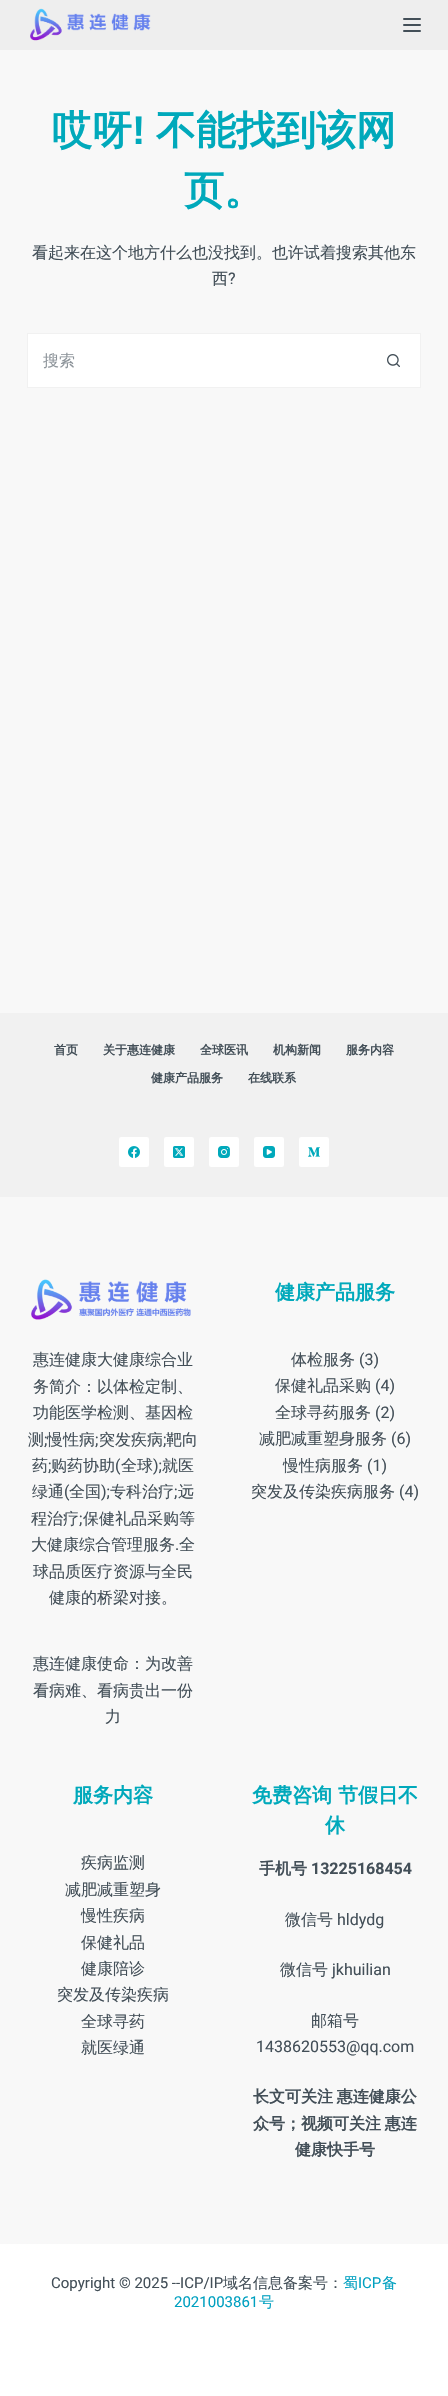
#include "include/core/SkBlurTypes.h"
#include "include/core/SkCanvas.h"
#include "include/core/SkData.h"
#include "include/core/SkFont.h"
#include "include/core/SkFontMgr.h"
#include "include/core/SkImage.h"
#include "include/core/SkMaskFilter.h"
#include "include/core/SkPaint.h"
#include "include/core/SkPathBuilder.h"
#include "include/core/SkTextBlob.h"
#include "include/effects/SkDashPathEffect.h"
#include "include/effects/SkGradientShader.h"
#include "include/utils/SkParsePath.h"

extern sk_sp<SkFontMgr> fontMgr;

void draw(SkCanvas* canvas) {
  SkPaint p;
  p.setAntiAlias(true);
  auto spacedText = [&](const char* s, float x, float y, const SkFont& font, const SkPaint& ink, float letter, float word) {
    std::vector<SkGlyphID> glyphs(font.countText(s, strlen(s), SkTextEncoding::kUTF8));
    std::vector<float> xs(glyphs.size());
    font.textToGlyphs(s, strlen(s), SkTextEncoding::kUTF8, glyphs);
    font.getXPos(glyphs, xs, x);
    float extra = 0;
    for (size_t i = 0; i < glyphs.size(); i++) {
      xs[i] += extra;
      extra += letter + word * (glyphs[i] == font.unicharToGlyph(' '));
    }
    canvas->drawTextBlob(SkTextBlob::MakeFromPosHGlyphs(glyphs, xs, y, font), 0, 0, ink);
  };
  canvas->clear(SkColorSetRGB(248, 248, 248));
  p.setColor(SkColorSetRGB(238, 238, 238));
  canvas->drawRect(SkRect::MakeLTRB(0, 0, 448, 50), p);
  canvas->drawImageRect(SkImages::DeferredFromEncodedData(SkData::MakeFromFileName("images/1.png")), SkRect::MakeLTRB(30, 8, 151, 41), SkSamplingOptions());
  p.setColor(SkColorSetRGB(67, 79, 88));
  canvas->drawRoundRect(SkRect::MakeLTRB(403, 18, 421, 20), 1, 1, p);
  canvas->drawRoundRect(SkRect::MakeLTRB(403, 24, 421, 26), 1, 1, p);
  canvas->drawRoundRect(SkRect::MakeLTRB(403, 30, 421, 32), 1, 1, p);
  p.setColor(SK_ColorWHITE);
  canvas->drawRect(SkRect::MakeLTRB(28, 334, 420, 387), p);
  p.setColor(SkColorSetRGB(241, 241, 241));
  canvas->drawRect(SkRect::MakeLTRB(27, 333, 421, 334), p);
  canvas->drawRect(SkRect::MakeLTRB(27, 387, 366, 388), p);
  canvas->drawRect(SkRect::MakeLTRB(27, 333, 28, 388), p);
  canvas->drawRect(SkRect::MakeLTRB(420, 333, 421, 388), p);
  canvas->drawRect(SkRect::MakeLTRB(366, 387, 421, 388), p);
  canvas->drawImageRect(SkImages::DeferredFromEncodedData(SkData::MakeFromFileName("images/2.png")), SkRect::MakeLTRB(387, 354, 400, 367), SkSamplingOptions());
  p.setStyle(SkPaint::kStroke_Style);
  p.setStrokeWidth(1.5f);
  p.setStrokeCap(SkPaint::kRound_Cap);
  p.setColor(SK_ColorWHITE);
  canvas->drawPath(SkPathBuilder().moveTo(388, 365.5f).cubicTo(385, 363, 384.5f, 358.5f, 387.5f, 355).detach(), p);
  p.setStyle(SkPaint::kFill_Style);
  p.setColor(SkColorSetRGB(241, 241, 241));
  canvas->drawRect(SkRect::MakeLTRB(0, 1013, 448, 1197), p);
  p.setColor(SK_ColorWHITE);
  canvas->drawRoundRect(SkRect::MakeLTRB(119, 1137, 149, 1167), 2, 2, p);
  canvas->drawImageRect(SkImages::DeferredFromEncodedData(SkData::MakeFromFileName("images/3.png")), SkRect::MakeLTRB(128, 1146, 140, 1158), SkSamplingOptions());
  canvas->drawRoundRect(SkRect::MakeLTRB(164, 1137, 194, 1167), 2, 2, p);
  canvas->drawImageRect(SkImages::DeferredFromEncodedData(SkData::MakeFromFileName("images/4.png")), SkRect::MakeLTRB(173, 1146, 185, 1158), SkSamplingOptions());
  canvas->drawRoundRect(SkRect::MakeLTRB(209, 1137, 239, 1167), 2, 2, p);
  canvas->drawImageRect(SkImages::DeferredFromEncodedData(SkData::MakeFromFileName("images/5.png")), SkRect::MakeLTRB(218, 1146, 230, 1158), SkSamplingOptions());
  canvas->drawRoundRect(SkRect::MakeLTRB(254, 1137, 284, 1167), 2, 2, p);
  canvas->drawImageRect(SkImages::DeferredFromEncodedData(SkData::MakeFromFileName("images/6.png")), SkRect::MakeLTRB(263, 1146, 275, 1158), SkSamplingOptions());
  canvas->drawRoundRect(SkRect::MakeLTRB(299, 1137, 329, 1167), 2, 2, p);
  canvas->drawImageRect(SkImages::DeferredFromEncodedData(SkData::MakeFromFileName("images/7.png")), SkRect::MakeLTRB(308, 1147, 320, 1157), SkSamplingOptions());
  canvas->drawImageRect(SkImages::DeferredFromEncodedData(SkData::MakeFromFileName("images/8.png")), SkRect::MakeLTRB(31, 1279, 191, 1320), SkSamplingOptions());
  canvas->drawRect(SkRect::MakeLTRB(0, 2244, 448, 2396), p);
  SkFont font1(fontMgr->matchFamilyStyle("WenQuanYi Zen Hei", SkFontStyle::Bold()), 40);
  font1.setSubpixel(true);
  p.setColor(SkColorSetRGB(0, 169, 187));
  canvas->drawString("哎呀", 52, 144, font1, p);
  SkFont font2(fontMgr->matchFamilyStyle("Liberation Sans", SkFontStyle::Bold()), 40);
  font2.setSubpixel(true);
  canvas->drawString("!", 132, 144, font2, p);
  canvas->drawString("不能找到该网", 156, 144, font1, p);
  canvas->drawString("页。", 184, 204, font1, p);
  SkFont font3(fontMgr->matchFamilyStyle("WenQuanYi Zen Hei", SkFontStyle(500, SkFontStyle::kNormal_Width, SkFontStyle::kUpright_Slant)), 16);
  font3.setSubpixel(true);
  p.setColor(SkColorSetRGB(67, 79, 88));
  canvas->drawString("看起来在这个地方什么也没找到。也许试着搜索其他东", 32, 258, font3, p);
  canvas->drawString("西", 212, 284, font3, p);
  SkFont font4(fontMgr->matchFamilyStyle("Roboto", SkFontStyle::Normal()), 16);
  font4.setSubpixel(true);
  canvas->drawString("?", 228, 284, font4, p);
  p.setColor(SkColorSetRGB(142, 149, 155));
  canvas->drawString("搜索", 43, 366, font3, p);
  SkFont font5(fontMgr->matchFamilyStyle("WenQuanYi Zen Hei", SkFontStyle::Bold()), 12);
  font5.setSubpixel(true);
  p.setColor(SkColorSetRGB(67, 79, 88));
  canvas->drawString("首页", 54, 1054, font5, p);
  canvas->drawString("关于惠连健康", 103, 1054, font5, p);
  canvas->drawString("全球医讯", 200, 1054, font5, p);
  canvas->drawString("机构新闻", 273, 1054, font5, p);
  canvas->drawString("服务内容", 346, 1054, font5, p);
  canvas->drawString("健康产品服务", 151, 1082, font5, p);
  canvas->drawString("在线联系", 248, 1082, font5, p);
  canvas->drawString("惠连健康大健康综合业", 33, 1365, font3, p);
  canvas->drawString("务简介：以体检定制、", 33, 1392, font3, p);
  canvas->drawString("功能医学检测、基因检", 33, 1418, font3, p);
  canvas->drawString("测", 28, 1445, font3, p);
  canvas->drawString(";", 44, 1445, font4, p);
  canvas->drawString("慢性病", 47, 1445, font3, p);
  canvas->drawString(";", 95, 1445, font4, p);
  canvas->drawString("突发疾病", 99, 1445, font3, p);
  canvas->drawString(";", 163, 1445, font4, p);
  canvas->drawString("靶向", 166, 1445, font3, p);
  canvas->drawString("药", 32, 1471, font3, p);
  canvas->drawString(";", 48, 1471, font4, p);
  canvas->drawString("购药协助", 51, 1471, font3, p);
  canvas->drawString("(", 115, 1471, font4, p);
  canvas->drawString("全球", 121, 1471, font3, p);
  canvas->drawString(");", 153, 1471, font4, p);
  canvas->drawString("就医", 162, 1471, font3, p);
  canvas->drawString("绿通", 32, 1497, font3, p);
  canvas->drawString("(", 64, 1497, font4, p);
  canvas->drawString("全国", 69, 1497, font3, p);
  canvas->drawString(");", 101, 1497, font4, p);
  canvas->drawString("专科治疗", 110, 1497, font3, p);
  canvas->drawString(";", 174, 1497, font4, p);
  canvas->drawString("远", 178, 1497, font3, p);
  canvas->drawString("程治疗", 31, 1524, font3, p);
  canvas->drawString(";", 79, 1524, font4, p);
  canvas->drawString("保健礼品采购等", 83, 1524, font3, p);
  canvas->drawString("大健康综合管理服务", 31, 1550, font3, p);
  canvas->drawString(".", 175, 1550, font4, p);
  canvas->drawString("全", 179, 1550, font3, p);
  canvas->drawString("球品质医疗资源与全民", 33, 1577, font3, p);
  canvas->drawString("健康的桥梁对接。", 49, 1603, font3, p);
  canvas->drawString("惠连健康使命：为改善", 33, 1669, font3, p);
  canvas->drawString("看病难、看病贵出一份", 33, 1696, font3, p);
  canvas->drawString("力", 105, 1722, font3, p);
  SkFont font6(fontMgr->matchFamilyStyle("WenQuanYi Zen Hei", SkFontStyle::Bold()), 20);
  font6.setSubpixel(true);
  p.setColor(SkColorSetRGB(0, 169, 187));
  canvas->drawString("健康产品服务", 275, 1299, font6, p);
  p.setColor(SkColorSetRGB(67, 79, 88));
  canvas->drawString("体检服务", 291, 1365, font3, p);
  canvas->drawString("(3)", 359, 1365, font4, p);
  canvas->drawString("保健礼品采购", 275, 1391, font3, p);
  canvas->drawString("(4)", 375, 1391, font4, p);
  canvas->drawString("全球寻药服务", 275, 1418, font3, p);
  canvas->drawString("(2)", 375, 1418, font4, p);
  canvas->drawString("减肥减重塑身服务", 259, 1444, font3, p);
  canvas->drawString("(6)", 391, 1444, font4, p);
  canvas->drawString("慢性病服务", 283, 1471, font3, p);
  canvas->drawString("(1)", 367, 1471, font4, p);
  canvas->drawString("突发及传染疾病服务", 251, 1497, font3, p);
  canvas->drawString("(4)", 399, 1497, font4, p);
  p.setColor(SkColorSetRGB(0, 169, 187));
  canvas->drawString("服务内容", 73, 1802, font6, p);
  p.setColor(SkColorSetRGB(67, 79, 88));
  canvas->drawString("疾病监测", 81, 1868, font3, p);
  canvas->drawString("减肥减重塑身", 65, 1895, font3, p);
  canvas->drawString("慢性疾病", 81, 1921, font3, p);
  canvas->drawString("保健礼品", 81, 1948, font3, p);
  canvas->drawString("健康陪诊", 81, 1974, font3, p);
  canvas->drawString("突发及传染疾病", 57, 2000, font3, p);
  canvas->drawString("全球寻药", 81, 2027, font3, p);
  canvas->drawString("就医绿通", 81, 2053, font3, p);
  p.setColor(SkColorSetRGB(0, 169, 187));
  canvas->drawString("免费咨询 节假日不", 252, 1802, font6, p);
  canvas->drawString("休", 325, 1832, font6, p);
  SkFont font7(fontMgr->matchFamilyStyle("WenQuanYi Zen Hei", SkFontStyle::Bold()), 16);
  font7.setSubpixel(true);
  p.setColor(SkColorSetRGB(67, 79, 88));
  canvas->drawString("手机号", 259, 1874, font7, p);
  SkFont font8(fontMgr->matchFamilyStyle("Roboto", SkFontStyle::Bold()), 16);
  font8.setSubpixel(true);
  canvas->drawString("13225168454", 311, 1874, font8, p);
  canvas->drawString("微信号", 285, 1925, font3, p);
  canvas->drawString("hldydg", 337, 1925, font4, p);
  canvas->drawString("微信号", 280, 1975, font3, p);
  canvas->drawString("jkhuilian", 332, 1975, font4, p);
  canvas->drawString("邮箱号", 311, 2026, font3, p);
  canvas->drawString("1438620553@qq.com", 256, 2052, font4, p);
  spacedText("长文可关注 惠连健康公", 253, 2102, font7, p, 0, -1);
  spacedText("众号；视频可关注 惠连", 253, 2129, font7, p, 0, -1);
  canvas->drawString("健康快手号", 295, 2155, font7, p);
  SkFont font9(fontMgr->matchFamilyStyle("Roboto", SkFontStyle::Normal()), 15);
  font9.setSubpixel(true);
  canvas->drawString("Copyright © 2025 --ICP/IP", 51, 2288, font9, p);
  SkFont font10(fontMgr->matchFamilyStyle("WenQuanYi Zen Hei", SkFontStyle(500, SkFontStyle::kNormal_Width, SkFontStyle::kUpright_Slant)), 15);
  font10.setSubpixel(true);
  canvas->drawString("域名信息备案号：", 223, 2288, font10, p);
  p.setColor(SkColorSetRGB(0, 160, 192));
  canvas->drawString("蜀", 343, 2288, font10, p);
  canvas->drawString("ICP", 358, 2288, font9, p);
  canvas->drawString("备", 382, 2288, font10, p);
  canvas->drawString("2021003861", 174, 2307, font9, p);
  canvas->drawString("号", 259, 2307, font10, p);
}
